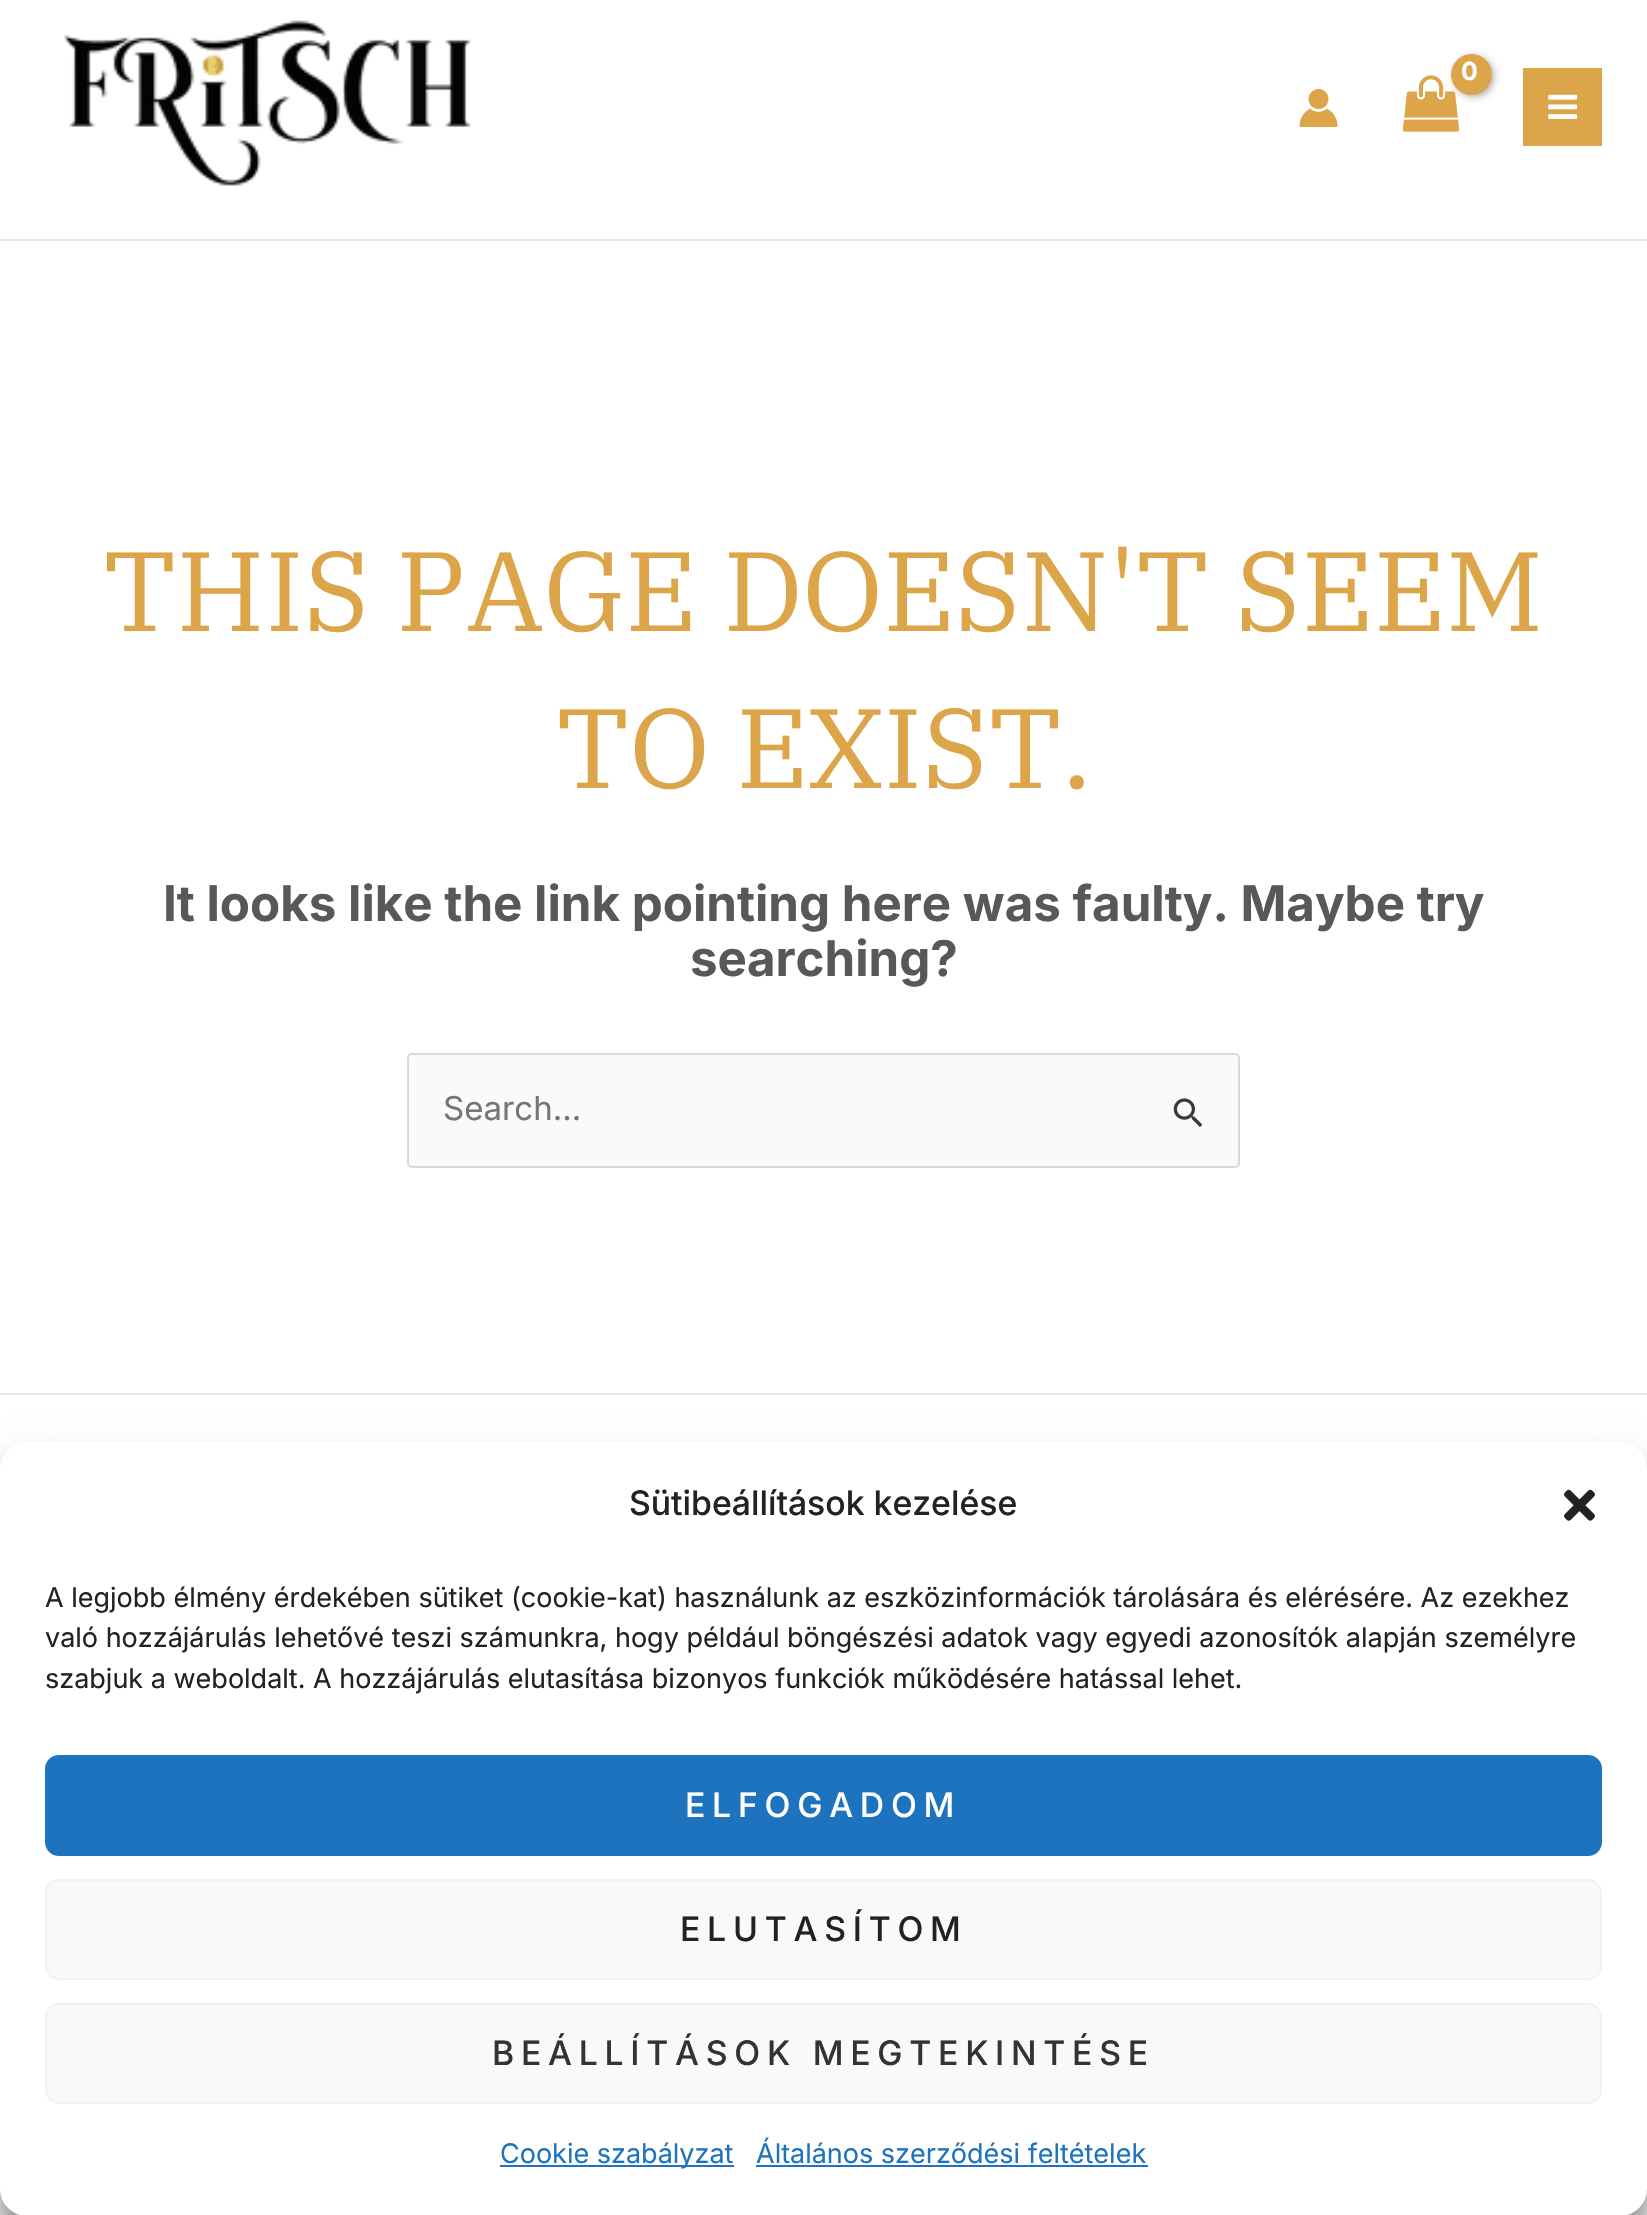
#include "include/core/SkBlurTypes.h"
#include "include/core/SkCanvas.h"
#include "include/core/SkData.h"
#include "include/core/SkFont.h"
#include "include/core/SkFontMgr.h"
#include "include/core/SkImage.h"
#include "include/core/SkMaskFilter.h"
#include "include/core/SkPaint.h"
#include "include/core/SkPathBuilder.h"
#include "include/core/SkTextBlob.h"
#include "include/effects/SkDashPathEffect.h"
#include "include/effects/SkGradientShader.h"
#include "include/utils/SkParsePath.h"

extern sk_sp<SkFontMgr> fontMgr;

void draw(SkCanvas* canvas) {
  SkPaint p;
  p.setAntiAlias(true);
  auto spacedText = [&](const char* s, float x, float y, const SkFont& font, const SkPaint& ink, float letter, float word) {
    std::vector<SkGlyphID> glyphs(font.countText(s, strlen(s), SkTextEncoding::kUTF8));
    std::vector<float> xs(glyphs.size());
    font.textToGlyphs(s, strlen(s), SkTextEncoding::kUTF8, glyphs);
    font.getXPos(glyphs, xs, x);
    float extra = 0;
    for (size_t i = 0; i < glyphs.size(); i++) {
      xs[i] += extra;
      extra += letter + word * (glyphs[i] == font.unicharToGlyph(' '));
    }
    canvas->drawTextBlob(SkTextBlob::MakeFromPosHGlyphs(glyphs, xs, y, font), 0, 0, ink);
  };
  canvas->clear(SK_ColorWHITE);
  p.setColor(SkColorSetRGB(234, 234, 234));
  canvas->drawRect(SkRect::MakeLTRB(0, 239, 1647, 241), p);
  canvas->drawImageRect(SkImages::DeferredFromEncodedData(SkData::MakeFromFileName("images/1.png")), SkRect::MakeLTRB(64, 20, 471, 186), SkSamplingOptions());
  canvas->drawImageRect(SkImages::DeferredFromEncodedData(SkData::MakeFromFileName("images/2.png")), SkRect::MakeLTRB(1299, 89, 1338, 127), SkSamplingOptions());
  canvas->drawImageRect(SkImages::DeferredFromEncodedData(SkData::MakeFromFileName("images/3.png")), SkRect::MakeLTRB(1402, 75, 1460, 132), SkSamplingOptions());
  p.setColor(SkColorSetARGB(77, 0, 0, 0));
  p.setMaskFilter(SkMaskFilter::MakeBlur(kNormal_SkBlurStyle, 3.5f));
  canvas->drawRoundRect(SkRect::MakeLTRB(1454, 56, 1494, 97), 20, 20, p);
  p.setMaskFilter(nullptr);
  p.setColor(SkColorSetRGB(220, 165, 74));
  canvas->drawCircle(1471.5f, 74.5f, 20.5f, p);
  canvas->drawRect(SkRect::MakeLTRB(1523, 68, 1602, 146), p);
  canvas->drawImageRect(SkImages::DeferredFromEncodedData(SkData::MakeFromFileName("images/4.png")), SkRect::MakeLTRB(1548, 94, 1578, 119), SkSamplingOptions());
  p.setColor(SkColorSetRGB(250, 250, 250));
  canvas->drawRoundRect(SkRect::MakeLTRB(408, 1054, 1239, 1167), 4, 4, p);
  p.setStyle(SkPaint::kStroke_Style);
  p.setStrokeWidth(2);
  p.setColor(SkColorSetRGB(217, 217, 217));
  canvas->drawRoundRect(SkRect::MakeLTRB(408, 1054, 1239, 1167), 4, 4, p);
  canvas->drawImageRect(SkImages::DeferredFromEncodedData(SkData::MakeFromFileName("images/5.png")), SkRect::MakeLTRB(1173, 1098, 1202, 1127), SkSamplingOptions());
  p.setStyle(SkPaint::kFill_Style);
  p.setColor(SkColorSetRGB(234, 234, 234));
  canvas->drawRect(SkRect::MakeLTRB(0, 1393, 1647, 1395), p);
  p.setColor(SkColorSetRGB(238, 238, 238));
  canvas->drawRect(SkRect::MakeLTRB(0, 2189, 1647, 2215), p);
  p.setColor(SkColorSetARGB(59, 0, 0, 0));
  p.setMaskFilter(SkMaskFilter::MakeBlur(kNormal_SkBlurStyle, 7));
  canvas->drawRoundRect(SkRect::MakeLTRB(0, 1456, 1647, 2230), 27, 27, p);
  p.setMaskFilter(nullptr);
  p.setColor(SkColorSetARGB(48, 0, 0, 0));
  p.setMaskFilter(SkMaskFilter::MakeBlur(kNormal_SkBlurStyle, 22.5f));
  canvas->drawRoundRect(SkRect::MakeLTRB(0, 1465, 1647, 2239), 27, 27, p);
  p.setMaskFilter(nullptr);
  p.setColor(SK_ColorWHITE);
  canvas->drawRoundRect(SkRect::MakeLTRB(0, 1442, 1647, 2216), 27, 27, p);
  canvas->drawImageRect(SkImages::DeferredFromEncodedData(SkData::MakeFromFileName("images/6.png")), SkRect::MakeLTRB(1564, 1489, 1595, 1521), SkSamplingOptions());
  p.setColor(SkColorSetRGB(30, 115, 190));
  canvas->drawRoundRect(SkRect::MakeLTRB(46, 1756, 1601, 1855), 13, 13, p);
  p.setStyle(SkPaint::kStroke_Style);
  canvas->drawRoundRect(SkRect::MakeLTRB(46, 1756, 1601, 1855), 13, 13, p);
  p.setStyle(SkPaint::kFill_Style);
  p.setColor(SkColorSetRGB(249, 249, 249));
  canvas->drawRoundRect(SkRect::MakeLTRB(46, 1880, 1601, 1979), 13, 13, p);
  p.setStyle(SkPaint::kStroke_Style);
  p.setColor(SkColorSetRGB(242, 242, 242));
  canvas->drawRoundRect(SkRect::MakeLTRB(46, 1880, 1601, 1979), 13, 13, p);
  p.setStyle(SkPaint::kFill_Style);
  p.setColor(SkColorSetRGB(249, 249, 249));
  canvas->drawRoundRect(SkRect::MakeLTRB(46, 2004, 1601, 2103), 13, 13, p);
  p.setStyle(SkPaint::kStroke_Style);
  p.setColor(SkColorSetRGB(242, 242, 242));
  canvas->drawRoundRect(SkRect::MakeLTRB(46, 2004, 1601, 2103), 13, 13, p);
  p.setStyle(SkPaint::kFill_Style);
  p.setColor(SkColorSetRGB(30, 115, 190));
  canvas->drawRect(SkRect::MakeLTRB(500, 2165, 734, 2167), p);
  canvas->drawRect(SkRect::MakeLTRB(756, 2165, 1148, 2167), p);
  SkFont font1(fontMgr->matchFamilyStyle("Inter", SkFontStyle::Bold()), 25);
  font1.setSubpixel(true);
  p.setColor(SK_ColorWHITE);
  spacedText("0", 1461, 80, font1, p, -1, 0);
  SkFont font2(fontMgr->matchFamilyStyle("IBM Plex Serif", SkFontStyle::Normal()), 112.5f);
  font2.setSubpixel(true);
  p.setColor(SkColorSetRGB(220, 165, 74));
  canvas->drawString("THIS PAGE DOESN'T SEEM", 103, 631, font2, p);
  canvas->drawString("TO EXIST.", 556, 788, font2, p);
  SkFont font3(fontMgr->matchFamilyStyle("Inter", SkFontStyle::Bold()), 49.25f);
  font3.setSubpixel(true);
  p.setColor(SkColorSetRGB(88, 88, 88));
  canvas->drawString("It looks like the link pointing here was faulty. Maybe try", 163, 921, font3, p);
  canvas->drawString("searching?", 690, 976, font3, p);
  SkFont font4(fontMgr->matchFamilyStyle("Inter", SkFontStyle::Normal()), 33);
  font4.setSubpixel(true);
  p.setColor(SkColorSetRGB(117, 117, 117));
  canvas->drawString("Search...", 443, 1120, font4, p);
  SkFont font5(fontMgr->matchFamilyStyle("Inter", SkFontStyle(500, SkFontStyle::kNormal_Width, SkFontStyle::kUpright_Slant)), 33.75f);
  font5.setSubpixel(true);
  p.setColor(SkColorSetRGB(34, 34, 34));
  canvas->drawString("Sütibeállítások kezelése", 629, 1515, font5, p);
  SkFont font6(fontMgr->matchFamilyStyle("Inter", SkFontStyle::Normal()), 27);
  font6.setSubpixel(true);
  canvas->drawString("A legjobb élmény érdekében sütiket (cookie-kat) használunk az eszközinformációk tárolására és elérésére. Az ezekhez", 45, 1607, font6, p);
  canvas->drawString("való hozzájárulás lehetővé teszi számunkra, hogy például böngészési adatok vagy egyedi azonosítók alapján személyre", 45, 1647, font6, p);
  canvas->drawString("szabjuk a weboldalt. A hozzájárulás elutasítása bizonyos funkciók működésére hatással lehet.", 45, 1688, font6, p);
  p.setColor(SK_ColorWHITE);
  spacedText("ELFOGADOM", 685, 1817, font5, p, 6.75f, 0);
  p.setColor(SkColorSetRGB(34, 34, 34));
  spacedText("ELUTASÍTOM", 680, 1941, font5, p, 6.75f, 0);
  p.setColor(SkColorSetRGB(51, 51, 51));
  spacedText("BEÁLLÍTÁSOK MEGTEKINTÉSE", 492, 2065, font5, p, 6.75f, 0);
  p.setColor(SkColorSetRGB(30, 115, 190));
  canvas->drawString("Cookie szabályzat", 500, 2163, font6, p);
  canvas->drawString("Általános szerződési feltételek", 756, 2163, font6, p);
}
